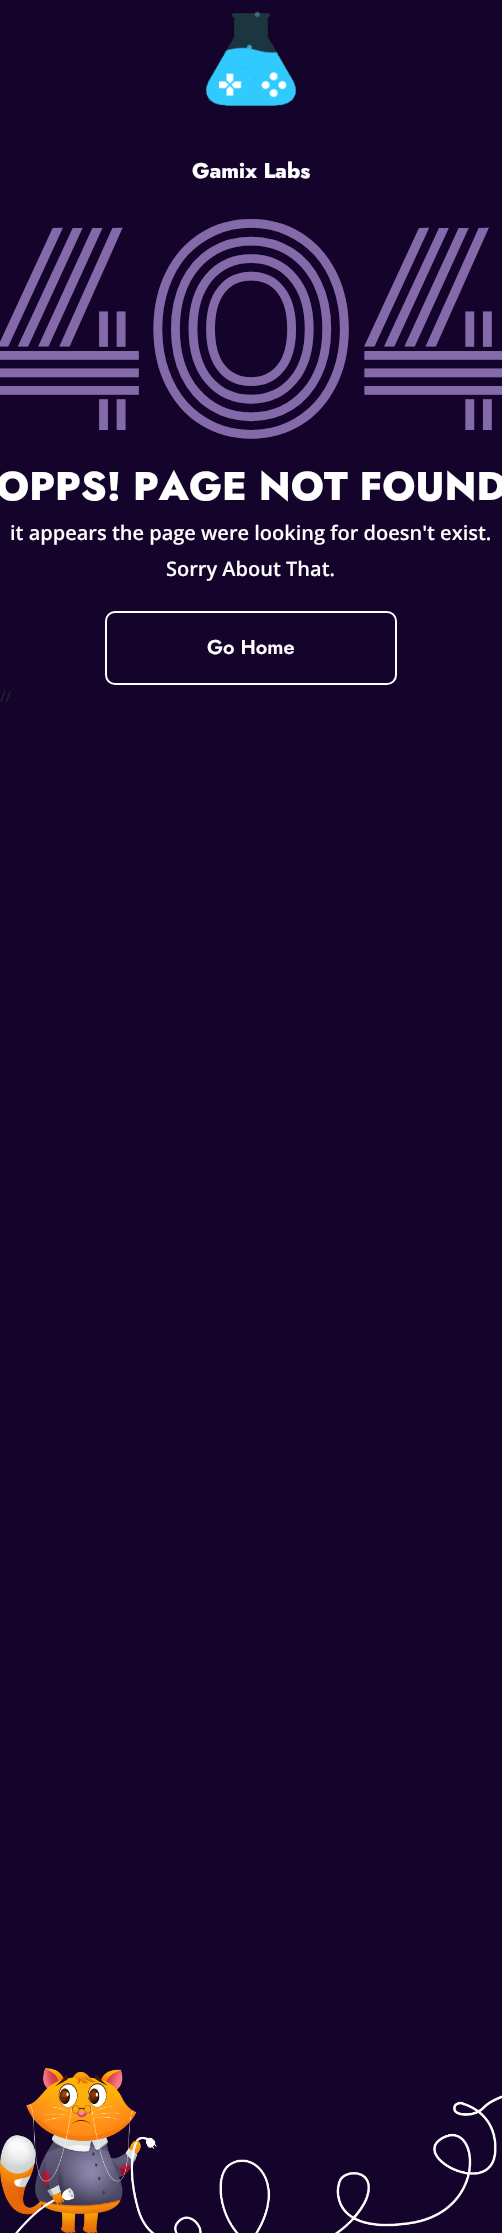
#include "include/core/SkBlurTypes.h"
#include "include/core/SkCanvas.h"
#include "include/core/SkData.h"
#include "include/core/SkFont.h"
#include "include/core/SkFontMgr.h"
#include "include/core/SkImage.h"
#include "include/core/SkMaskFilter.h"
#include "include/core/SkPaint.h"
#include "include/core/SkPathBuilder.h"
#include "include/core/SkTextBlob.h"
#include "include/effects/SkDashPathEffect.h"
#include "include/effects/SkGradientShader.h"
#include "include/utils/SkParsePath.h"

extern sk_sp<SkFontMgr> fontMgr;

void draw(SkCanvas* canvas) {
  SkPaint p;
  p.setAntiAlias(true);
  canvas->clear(SkColorSetRGB(20, 4, 44));
  canvas->drawImageRect(SkImages::DeferredFromEncodedData(SkData::MakeFromFileName("images/1.png")), SkRect::MakeLTRB(206, 11, 296, 106), SkSamplingOptions());
  p.setStyle(SkPaint::kStroke_Style);
  p.setStrokeWidth(2);
  p.setColor(SK_ColorWHITE);
  canvas->drawRoundRect(SkRect::MakeLTRB(106, 612, 396, 684), 9, 9, p);
  canvas->drawImageRect(SkImages::DeferredFromEncodedData(SkData::MakeFromFileName("images/2.png")), SkRect::MakeLTRB(0, 2068, 502, 2233), SkSamplingOptions());
  SkFont font1(fontMgr->matchFamilyStyle("Jost", SkFontStyle(800, SkFontStyle::kNormal_Width, SkFontStyle::kUpright_Slant)), 21.25f);
  font1.setSubpixel(true);
  p.setStyle(SkPaint::kFill_Style);
  canvas->drawString("Gamix Labs", 192, 178, font1, p);
  SkFont font2(fontMgr->matchFamilyStyle("Monoton", SkFontStyle::Normal()), 250);
  font2.setSubpixel(true);
  p.setColor(SkColorSetRGB(132, 106, 169));
  canvas->drawString("404", -10, 430, font2, p);
  SkFont font3(fontMgr->matchFamilyStyle("Jost", SkFontStyle(800, SkFontStyle::kNormal_Width, SkFontStyle::kUpright_Slant)), 40);
  font3.setSubpixel(true);
  p.setColor(SK_ColorWHITE);
  canvas->drawString("OPPS! PAGE NOT FOUND", -4, 500, font3, p);
  SkFont font4(fontMgr->matchFamilyStyle("Open Sans", SkFontStyle(600, SkFontStyle::kNormal_Width, SkFontStyle::kUpright_Slant)), 20);
  font4.setSubpixel(true);
  canvas->drawString("it appears the page were looking for doesn't exist.", 10, 540, font4, p);
  canvas->drawString("Sorry About That.", 166, 576, font4, p);
  SkFont font5(fontMgr->matchFamilyStyle("Jost", SkFontStyle(600, SkFontStyle::kNormal_Width, SkFontStyle::kUpright_Slant)), 20);
  font5.setSubpixel(true);
  canvas->drawString("Go Home", 207, 654, font5, p);
  SkFont font6(fontMgr->matchFamilyStyle("Open Sans", SkFontStyle::Normal()), 15);
  font6.setSubpixel(true);
  p.setColor(SkColorSetRGB(33, 37, 41));
  canvas->drawString("//", 0, 702, font6, p);
}
